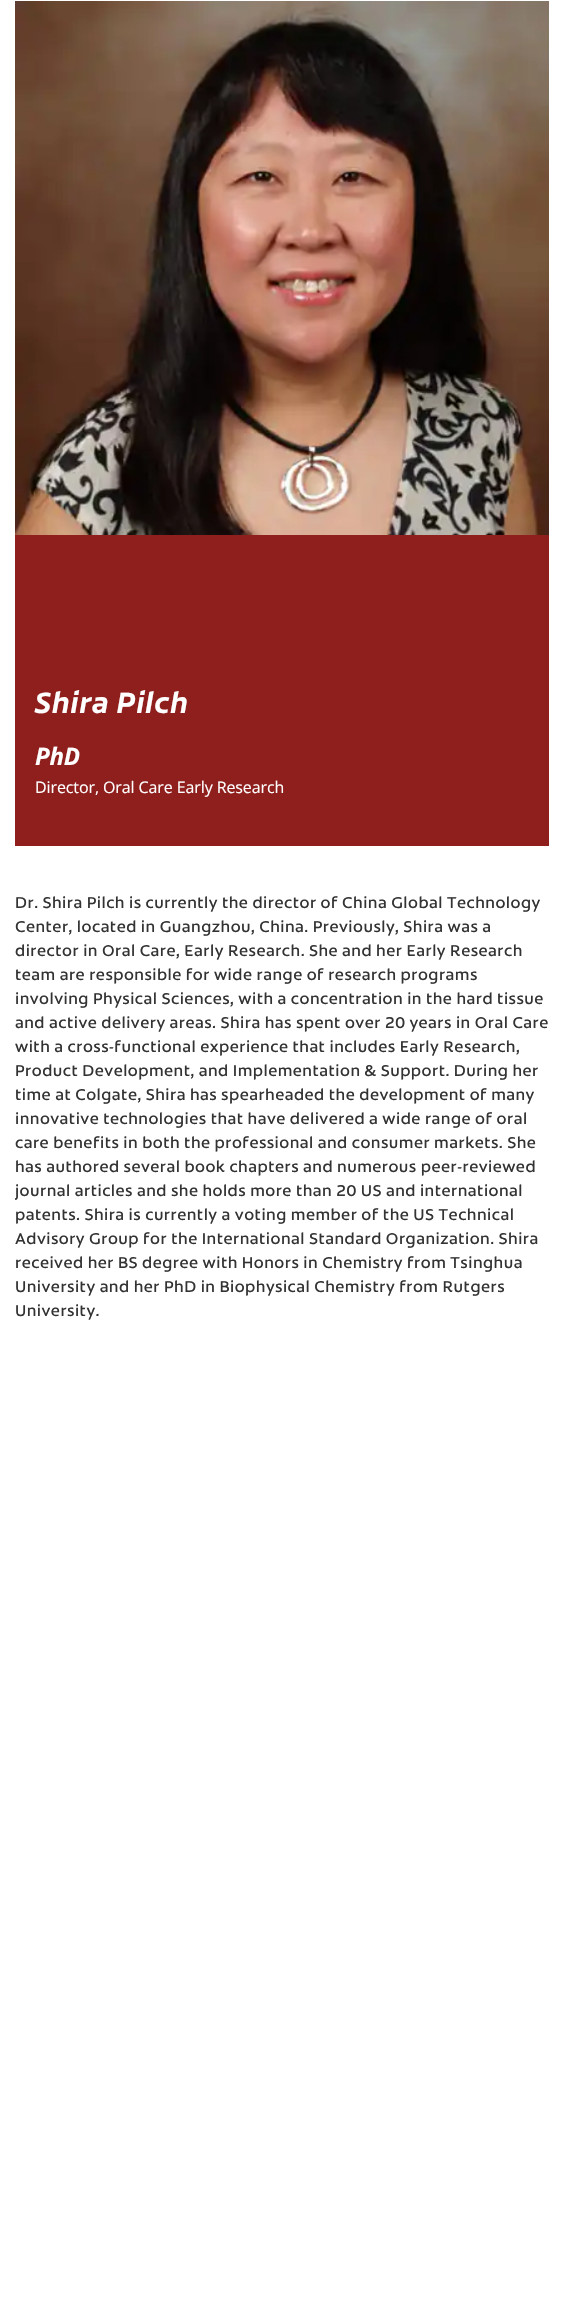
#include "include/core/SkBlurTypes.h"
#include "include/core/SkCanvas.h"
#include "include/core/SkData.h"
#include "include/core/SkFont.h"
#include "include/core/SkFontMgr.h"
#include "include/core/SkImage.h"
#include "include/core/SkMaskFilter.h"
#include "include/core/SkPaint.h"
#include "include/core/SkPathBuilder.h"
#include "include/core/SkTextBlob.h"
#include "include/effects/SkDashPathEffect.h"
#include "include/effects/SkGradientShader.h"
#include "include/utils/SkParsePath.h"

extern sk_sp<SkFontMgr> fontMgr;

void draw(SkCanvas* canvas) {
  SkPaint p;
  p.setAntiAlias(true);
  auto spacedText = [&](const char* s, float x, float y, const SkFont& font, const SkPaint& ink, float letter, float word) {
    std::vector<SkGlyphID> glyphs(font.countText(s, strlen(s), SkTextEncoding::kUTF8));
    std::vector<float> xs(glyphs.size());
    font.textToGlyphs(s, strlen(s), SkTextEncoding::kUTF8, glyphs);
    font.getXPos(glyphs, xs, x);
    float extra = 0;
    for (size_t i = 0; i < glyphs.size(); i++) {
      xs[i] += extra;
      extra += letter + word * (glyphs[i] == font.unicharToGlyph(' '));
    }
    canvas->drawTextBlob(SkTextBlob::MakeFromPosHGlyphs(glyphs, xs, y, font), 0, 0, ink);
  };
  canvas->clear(SK_ColorWHITE);
  canvas->drawImageRect(SkImages::DeferredFromEncodedData(SkData::MakeFromFileName("images/1.png")), SkRect::MakeLTRB(15, 1, 549, 535), SkSamplingOptions());
  p.setColor(SkColorSetRGB(143, 31, 29));
  canvas->drawRect(SkRect::MakeLTRB(15, 535, 549, 846), p);
  SkFont font1(fontMgr->matchFamilyStyle("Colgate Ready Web", SkFontStyle::BoldItalic()), 30);
  font1.setSubpixel(true);
  p.setColor(SK_ColorWHITE);
  spacedText("Shira Pilch", 35, 713, font1, p, -0.25f, 0);
  SkFont font2(fontMgr->matchFamilyStyle("Open Sans", SkFontStyle::BoldItalic()), 24);
  font2.setSubpixel(true);
  spacedText("PhD", 35, 765, font2, p, -0.25f, 0);
  SkFont font3(fontMgr->matchFamilyStyle("Open Sans", SkFontStyle::Normal()), 16);
  font3.setSubpixel(true);
  spacedText("Director, Oral Care Early Research", 35, 793, font3, p, -0.1f, 0);
  SkFont font4(fontMgr->matchFamilyStyle("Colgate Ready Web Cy", SkFontStyle::Normal()), 16);
  font4.setSubpixel(true);
  p.setColor(SkColorSetRGB(51, 51, 51));
  canvas->drawString("Dr. Shira Pilch is currently the director of China Global Technology", 15, 908, font4, p);
  canvas->drawString("Center, located in Guangzhou, China. Previously, Shira was a", 15, 932, font4, p);
  canvas->drawString("director in Oral Care, Early Research. She and her Early Research", 15, 956, font4, p);
  canvas->drawString("team are responsible for wide range of research programs", 15, 980, font4, p);
  canvas->drawString("involving Physical Sciences, with a concentration in the hard tissue", 15, 1004, font4, p);
  canvas->drawString("and active delivery areas. Shira has spent over 20 years in Oral Care", 15, 1028, font4, p);
  canvas->drawString("with a cross-functional experience that includes Early Research,", 15, 1052, font4, p);
  canvas->drawString("Product Development, and Implementation & Support. During her", 15, 1076, font4, p);
  canvas->drawString("time at Colgate, Shira has spearheaded the development of many", 15, 1100, font4, p);
  canvas->drawString("innovative technologies that have delivered a wide range of oral", 15, 1124, font4, p);
  canvas->drawString("care benefits in both the professional and consumer markets. She", 15, 1148, font4, p);
  canvas->drawString("has authored several book chapters and numerous peer-reviewed", 15, 1172, font4, p);
  canvas->save();
  canvas->clipRect(SkRect::MakeLTRB(15, 876, 549, 1340));
  canvas->drawString("journal articles and she holds more than 20 US and international", 15, 1196, font4, p);
  canvas->restore();
  canvas->drawString("patents. Shira is currently a voting member of the US Technical", 15, 1220, font4, p);
  canvas->drawString("Advisory Group for the International Standard Organization. Shira", 15, 1244, font4, p);
  canvas->drawString("received her BS degree with Honors in Chemistry from Tsinghua", 15, 1268, font4, p);
  canvas->drawString("University and her PhD in Biophysical Chemistry from Rutgers", 15, 1292, font4, p);
  canvas->drawString("University.", 15, 1316, font4, p);
}
